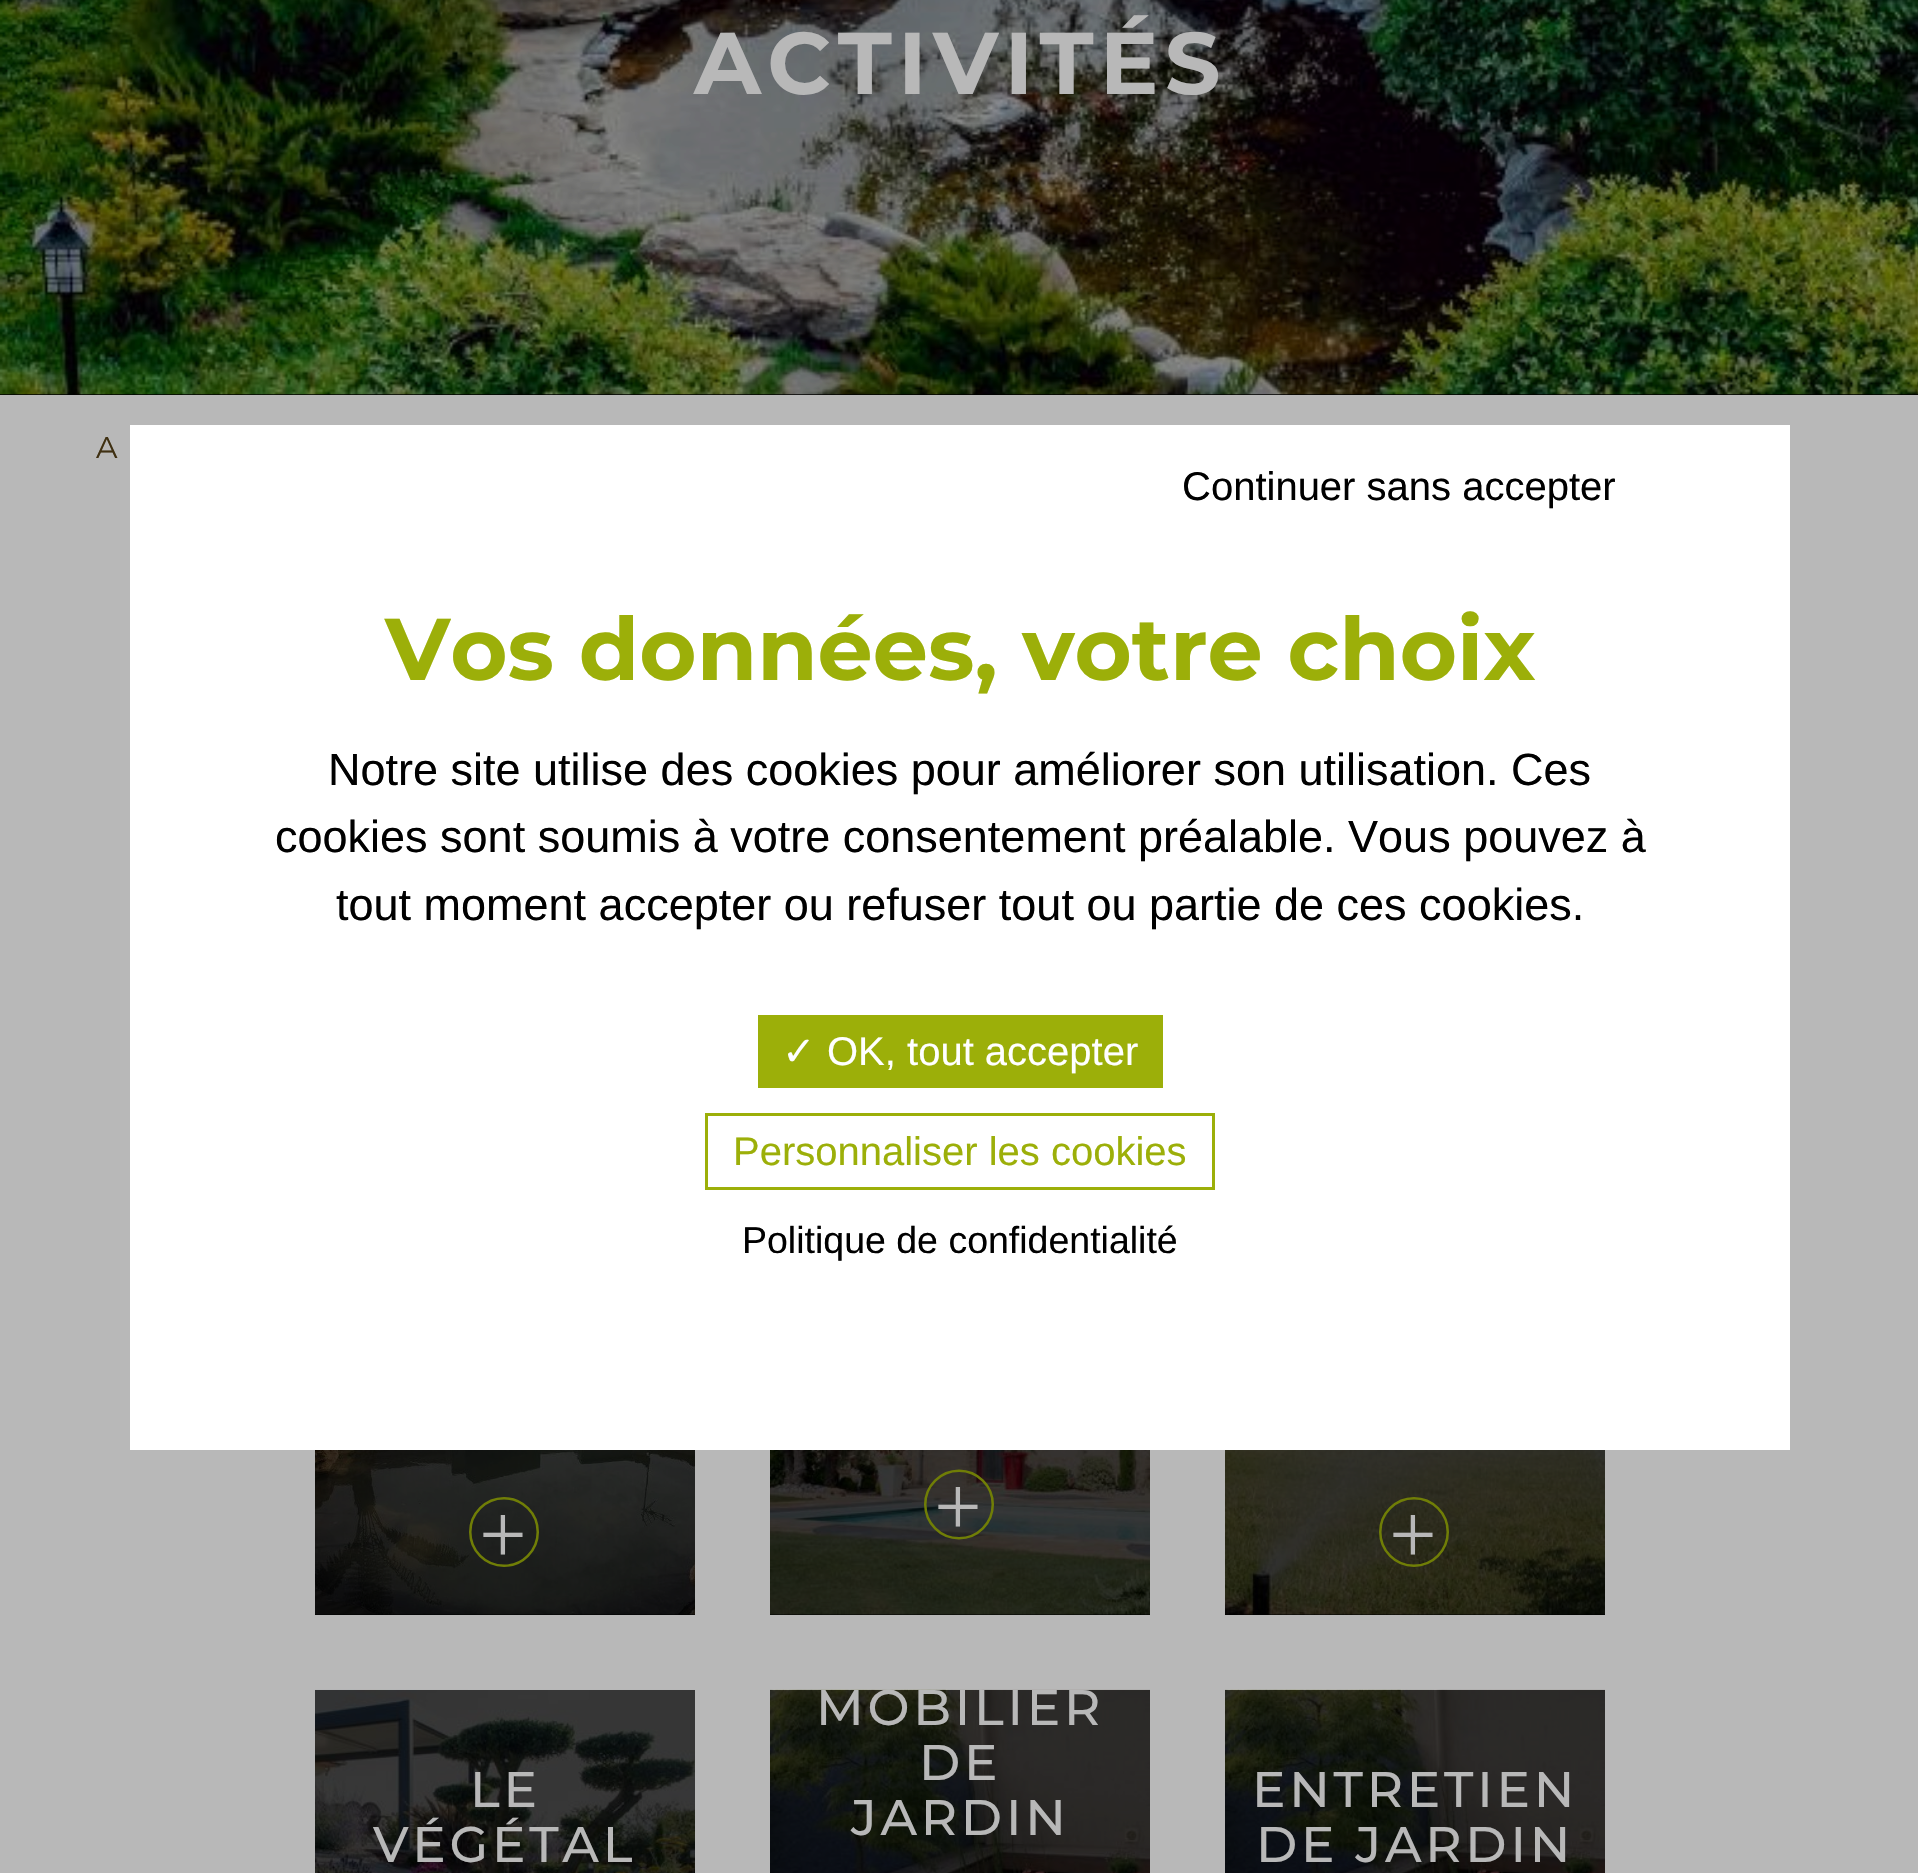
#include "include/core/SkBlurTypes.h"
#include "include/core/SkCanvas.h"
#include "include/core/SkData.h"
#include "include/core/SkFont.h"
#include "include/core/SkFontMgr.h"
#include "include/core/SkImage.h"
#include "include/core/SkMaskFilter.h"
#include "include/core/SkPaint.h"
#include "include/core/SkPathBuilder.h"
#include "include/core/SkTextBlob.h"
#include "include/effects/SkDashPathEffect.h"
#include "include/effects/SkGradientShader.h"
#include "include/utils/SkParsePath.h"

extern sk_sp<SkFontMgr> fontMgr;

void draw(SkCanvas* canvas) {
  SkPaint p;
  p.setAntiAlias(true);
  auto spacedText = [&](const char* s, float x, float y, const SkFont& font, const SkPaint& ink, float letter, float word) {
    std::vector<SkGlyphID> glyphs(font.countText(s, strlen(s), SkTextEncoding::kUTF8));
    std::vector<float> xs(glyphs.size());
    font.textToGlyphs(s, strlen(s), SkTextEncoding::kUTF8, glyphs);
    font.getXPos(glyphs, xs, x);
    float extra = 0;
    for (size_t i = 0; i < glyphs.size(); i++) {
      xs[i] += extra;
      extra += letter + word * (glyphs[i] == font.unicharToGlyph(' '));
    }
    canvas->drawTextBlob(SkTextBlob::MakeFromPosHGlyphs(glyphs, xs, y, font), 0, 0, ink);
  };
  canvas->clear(SkColorSetRGB(184, 184, 184));
  p.setColor(SK_ColorBLACK);
  canvas->drawRect(SkRect::MakeLTRB(0, 0, 1918, 395), p);
  canvas->drawImageRect(SkImages::DeferredFromEncodedData(SkData::MakeFromFileName("images/1.png")), SkRect::MakeLTRB(0, 0, 1918, 395), SkSamplingOptions());
  canvas->drawRect(SkRect::MakeLTRB(315, 1450, 695, 1615), p);
  canvas->drawImageRect(SkImages::DeferredFromEncodedData(SkData::MakeFromFileName("images/2.png")), SkRect::MakeLTRB(315, 1450, 695, 1615), SkSamplingOptions());
  canvas->drawImageRect(SkImages::DeferredFromEncodedData(SkData::MakeFromFileName("images/3.png")), SkRect::MakeLTRB(469, 1497, 539, 1567), SkSamplingOptions());
  canvas->drawRect(SkRect::MakeLTRB(770, 1450, 1150, 1615), p);
  canvas->drawImageRect(SkImages::DeferredFromEncodedData(SkData::MakeFromFileName("images/4.png")), SkRect::MakeLTRB(770, 1450, 1150, 1615), SkSamplingOptions());
  canvas->drawImageRect(SkImages::DeferredFromEncodedData(SkData::MakeFromFileName("images/5.png")), SkRect::MakeLTRB(924, 1469, 994, 1540), SkSamplingOptions());
  canvas->drawRect(SkRect::MakeLTRB(1225, 1450, 1605, 1615), p);
  canvas->drawImageRect(SkImages::DeferredFromEncodedData(SkData::MakeFromFileName("images/6.png")), SkRect::MakeLTRB(1225, 1450, 1605, 1615), SkSamplingOptions());
  canvas->drawImageRect(SkImages::DeferredFromEncodedData(SkData::MakeFromFileName("images/7.png")), SkRect::MakeLTRB(1379, 1497, 1449, 1567), SkSamplingOptions());
  canvas->drawRect(SkRect::MakeLTRB(315, 1690, 695, 1873), p);
  canvas->drawImageRect(SkImages::DeferredFromEncodedData(SkData::MakeFromFileName("images/8.png")), SkRect::MakeLTRB(315, 1689, 695, 1873), SkSamplingOptions());
  canvas->drawRect(SkRect::MakeLTRB(770, 1690, 1150, 1873), p);
  canvas->drawImageRect(SkImages::DeferredFromEncodedData(SkData::MakeFromFileName("images/9.png")), SkRect::MakeLTRB(770, 1689, 1150, 1873), SkSamplingOptions());
  canvas->drawRect(SkRect::MakeLTRB(1225, 1690, 1605, 1873), p);
  canvas->drawImageRect(SkImages::DeferredFromEncodedData(SkData::MakeFromFileName("images/9.png")), SkRect::MakeLTRB(1225, 1689, 1605, 1873), SkSamplingOptions());
  p.setColor(SK_ColorWHITE);
  canvas->drawRect(SkRect::MakeLTRB(130, 425, 1790, 1450), p);
  p.setColor(SkColorSetRGB(156, 175, 9));
  canvas->drawRect(SkRect::MakeLTRB(758, 1015, 1163, 1088), p);
  p.setStyle(SkPaint::kStroke_Style);
  p.setStrokeWidth(3);
  canvas->drawRect(SkRect::MakeLTRB(706.5f, 1114.5f, 1213.5f, 1188.5f), p);
  SkFont font1(fontMgr->matchFamilyStyle("Montserrat", SkFontStyle::Bold()), 87.5f);
  font1.setSubpixel(true);
  p.setStyle(SkPaint::kFill_Style);
  p.setColor(SkColorSetRGB(184, 184, 184));
  spacedText("ACTIVITÉS", 694, 94, font1, p, 6.25f, 0);
  SkFont font2(fontMgr->matchFamilyStyle("Montserrat", SkFontStyle::Normal()), 30);
  font2.setSubpixel(true);
  p.setColor(SkColorSetRGB(63, 48, 18));
  canvas->drawString("A", 96, 458, font2, p);
  SkFont font3(fontMgr->matchFamilyStyle("Montserrat", SkFontStyle(500, SkFontStyle::kNormal_Width, SkFontStyle::kUpright_Slant)), 50);
  font3.setSubpixel(true);
  p.setColor(SkColorSetRGB(184, 184, 184));
  spacedText("LE", 470, 1807, font3, p, 3.75f, 0);
  spacedText("VÉGÉTAL", 373, 1862, font3, p, 3.75f, 0);
  spacedText("MOBILIER", 816, 1725, font3, p, 3.75f, 0);
  spacedText("DE", 919, 1780, font3, p, 3.75f, 0);
  spacedText("JARDIN", 851, 1835, font3, p, 3.75f, 0);
  spacedText("ENTRETIEN", 1252, 1807, font3, p, 3.75f, 0);
  spacedText("DE JARDIN", 1256, 1862, font3, p, 3.75f, 0);
  SkFont font4(fontMgr->matchFamilyStyle("Liberation Sans", SkFontStyle::Normal()), 40);
  font4.setSubpixel(true);
  p.setColor(SK_ColorBLACK);
  canvas->drawString("Continuer sans accepter", 1182, 500, font4, p);
  p.setColor(SkColorSetRGB(156, 175, 9));
  canvas->drawString("Vos données, votre choix", 385, 680, font1, p);
  SkFont font5(fontMgr->matchFamilyStyle("Liberation Sans", SkFontStyle::Normal()), 45);
  font5.setSubpixel(true);
  p.setColor(SK_ColorBLACK);
  canvas->drawString("Notre site utilise des cookies pour améliorer son utilisation. Ces", 328, 785, font5, p);
  canvas->drawString("cookies sont soumis à votre consentement préalable. Vous pouvez à", 275, 852, font5, p);
  canvas->drawString("tout moment accepter ou refuser tout ou partie de ces cookies.", 336, 920, font5, p);
  SkFont font6(fontMgr->matchFamilyStyle("DejaVu Sans", SkFontStyle::Normal()), 40);
  font6.setSubpixel(true);
  p.setColor(SK_ColorWHITE);
  canvas->drawString("✓", 782, 1065, font6, p);
  canvas->drawString("OK, tout accepter", 827, 1065, font4, p);
  p.setColor(SkColorSetRGB(156, 175, 9));
  canvas->drawString("Personnaliser les cookies", 733, 1165, font4, p);
  SkFont font7(fontMgr->matchFamilyStyle("Liberation Sans", SkFontStyle::Normal()), 37.5f);
  font7.setSubpixel(true);
  p.setColor(SK_ColorBLACK);
  canvas->drawString("Politique de confidentialité", 742, 1253, font7, p);
}
